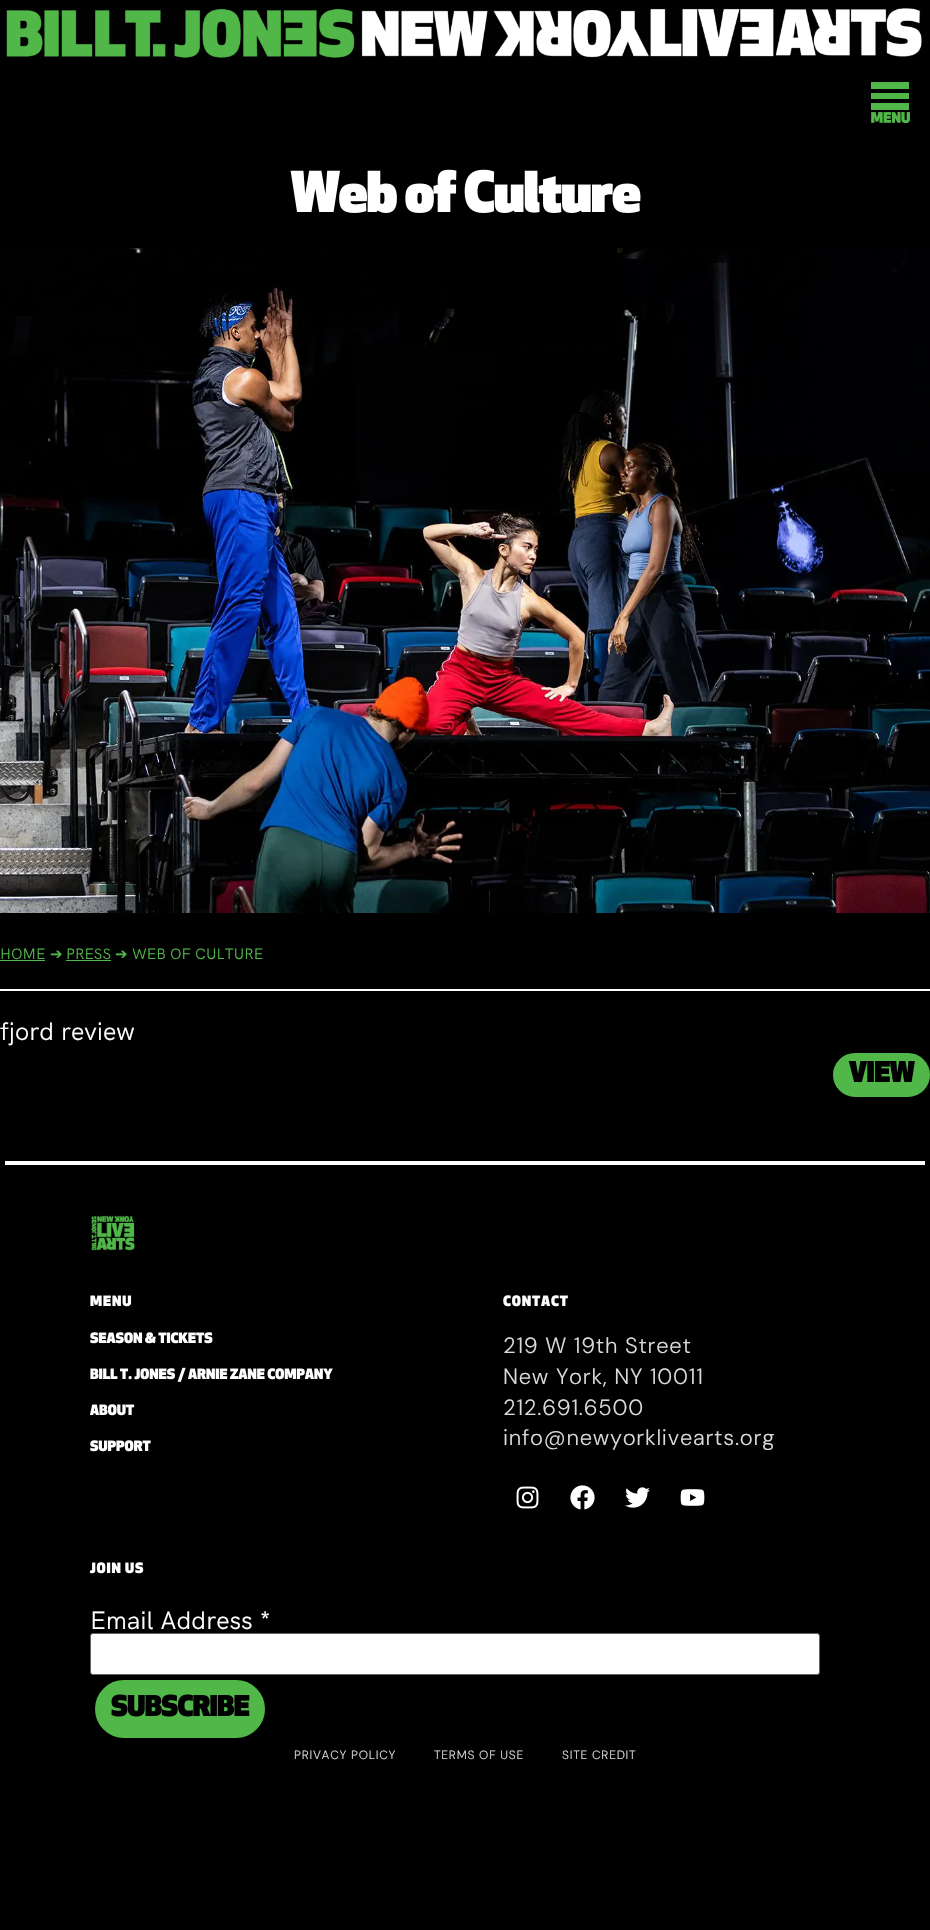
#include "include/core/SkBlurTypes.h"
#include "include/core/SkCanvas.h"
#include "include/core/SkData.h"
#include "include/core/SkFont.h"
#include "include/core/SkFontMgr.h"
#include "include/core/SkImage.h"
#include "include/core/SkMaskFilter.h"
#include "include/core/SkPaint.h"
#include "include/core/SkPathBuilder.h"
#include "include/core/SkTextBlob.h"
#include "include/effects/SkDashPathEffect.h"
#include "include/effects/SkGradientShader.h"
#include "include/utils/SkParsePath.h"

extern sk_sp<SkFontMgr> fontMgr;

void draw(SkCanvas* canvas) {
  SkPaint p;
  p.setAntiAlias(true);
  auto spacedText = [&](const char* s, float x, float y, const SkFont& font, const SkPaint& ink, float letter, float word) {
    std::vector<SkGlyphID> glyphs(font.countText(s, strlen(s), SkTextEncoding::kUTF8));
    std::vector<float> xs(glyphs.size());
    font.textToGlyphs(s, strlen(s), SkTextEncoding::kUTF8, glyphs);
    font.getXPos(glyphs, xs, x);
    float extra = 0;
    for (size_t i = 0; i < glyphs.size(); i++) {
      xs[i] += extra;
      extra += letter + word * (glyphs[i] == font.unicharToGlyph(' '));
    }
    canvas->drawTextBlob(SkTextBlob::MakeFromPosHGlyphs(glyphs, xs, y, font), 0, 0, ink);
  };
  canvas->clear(SK_ColorBLACK);
  canvas->drawImageRect(SkImages::DeferredFromEncodedData(SkData::MakeFromFileName("images/1.png")), SkRect::MakeLTRB(6, 8, 922, 58), SkSamplingOptions());
  canvas->drawImageRect(SkImages::DeferredFromEncodedData(SkData::MakeFromFileName("images/2.png")), SkRect::MakeLTRB(871, 82, 910, 123), SkSamplingOptions());
  canvas->drawImageRect(SkImages::DeferredFromEncodedData(SkData::MakeFromFileName("images/3.png")), SkRect::MakeLTRB(290, 169, 641, 213), SkSamplingOptions());
  canvas->drawImageRect(SkImages::DeferredFromEncodedData(SkData::MakeFromFileName("images/4.png")), SkRect::MakeLTRB(0, 248, 930, 913), SkSamplingOptions());
  p.setColor(SkColorSetRGB(80, 183, 72));
  canvas->drawRect(SkRect::MakeLTRB(0, 960, 45, 961), p);
  canvas->drawRect(SkRect::MakeLTRB(66, 960, 111, 961), p);
  p.setColor(SK_ColorWHITE);
  canvas->drawRect(SkRect::MakeLTRB(0, 989, 930, 991), p);
  p.setColor(SkColorSetRGB(80, 183, 72));
  canvas->drawRoundRect(SkRect::MakeLTRB(834, 1054, 929, 1096), 21, 21, p);
  p.setStyle(SkPaint::kStroke_Style);
  p.setStrokeWidth(2);
  canvas->drawRoundRect(SkRect::MakeLTRB(834, 1054, 929, 1096), 21, 21, p);
  canvas->drawImageRect(SkImages::DeferredFromEncodedData(SkData::MakeFromFileName("images/5.png")), SkRect::MakeLTRB(848, 1061, 915, 1082), SkSamplingOptions());
  p.setStyle(SkPaint::kFill_Style);
  p.setColor(SK_ColorWHITE);
  canvas->drawRect(SkRect::MakeLTRB(5, 1161, 925, 1165), p);
  canvas->drawImageRect(SkImages::DeferredFromEncodedData(SkData::MakeFromFileName("images/6.png")), SkRect::MakeLTRB(91, 1215, 135, 1251), SkSamplingOptions());
  canvas->drawImageRect(SkImages::DeferredFromEncodedData(SkData::MakeFromFileName("images/7.png")), SkRect::MakeLTRB(90, 1295, 132, 1307), SkSamplingOptions());
  canvas->drawImageRect(SkImages::DeferredFromEncodedData(SkData::MakeFromFileName("images/8.png")), SkRect::MakeLTRB(90, 1332, 213, 1344), SkSamplingOptions());
  canvas->drawImageRect(SkImages::DeferredFromEncodedData(SkData::MakeFromFileName("images/9.png")), SkRect::MakeLTRB(90, 1367, 333, 1382), SkSamplingOptions());
  canvas->drawImageRect(SkImages::DeferredFromEncodedData(SkData::MakeFromFileName("images/10.png")), SkRect::MakeLTRB(90, 1404, 135, 1416), SkSamplingOptions());
  canvas->drawImageRect(SkImages::DeferredFromEncodedData(SkData::MakeFromFileName("images/11.png")), SkRect::MakeLTRB(90, 1440, 151, 1452), SkSamplingOptions());
  canvas->drawImageRect(SkImages::DeferredFromEncodedData(SkData::MakeFromFileName("images/12.png")), SkRect::MakeLTRB(503, 1295, 568, 1307), SkSamplingOptions());
  canvas->drawImageRect(SkImages::DeferredFromEncodedData(SkData::MakeFromFileName("images/13.png")), SkRect::MakeLTRB(516, 1486, 539, 1509), SkSamplingOptions());
  canvas->drawImageRect(SkImages::DeferredFromEncodedData(SkData::MakeFromFileName("images/14.png")), SkRect::MakeLTRB(570, 1485, 595, 1510), SkSamplingOptions());
  canvas->drawImageRect(SkImages::DeferredFromEncodedData(SkData::MakeFromFileName("images/15.png")), SkRect::MakeLTRB(625, 1487, 650, 1508), SkSamplingOptions());
  canvas->drawImageRect(SkImages::DeferredFromEncodedData(SkData::MakeFromFileName("images/16.png")), SkRect::MakeLTRB(680, 1489, 705, 1506), SkSamplingOptions());
  canvas->drawImageRect(SkImages::DeferredFromEncodedData(SkData::MakeFromFileName("images/17.png")), SkRect::MakeLTRB(90, 1562, 144, 1574), SkSamplingOptions());
  canvas->drawRoundRect(SkRect::MakeLTRB(90.5f, 1633.5f, 819.5f, 1674.5f), 2.5f, 2.5f, p);
  p.setStyle(SkPaint::kStroke_Style);
  p.setStrokeWidth(1);
  p.setColor(SkColorSetRGB(102, 102, 102));
  canvas->drawRoundRect(SkRect::MakeLTRB(90.5f, 1633.5f, 819.5f, 1674.5f), 2.5f, 2.5f, p);
  p.setStyle(SkPaint::kFill_Style);
  p.setColor(SkColorSetRGB(80, 183, 72));
  canvas->drawRoundRect(SkRect::MakeLTRB(96, 1681, 264, 1737), 28, 28, p);
  p.setStyle(SkPaint::kStroke_Style);
  p.setStrokeWidth(2);
  canvas->drawRoundRect(SkRect::MakeLTRB(96, 1681, 264, 1737), 28, 28, p);
  canvas->drawImageRect(SkImages::DeferredFromEncodedData(SkData::MakeFromFileName("images/18.png")), SkRect::MakeLTRB(111, 1694, 250, 1717), SkSamplingOptions());
  SkFont font1(fontMgr->matchFamilyStyle("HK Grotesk", SkFontStyle::Normal()), 15);
  font1.setSubpixel(true);
  p.setStyle(SkPaint::kFill_Style);
  canvas->drawString("HOME", 0, 959, font1, p);
  SkFont font2(fontMgr->matchFamilyStyle("DejaVu Sans", SkFontStyle::Normal()), 15);
  font2.setSubpixel(true);
  canvas->drawString("➔", 50, 959, font2, p);
  canvas->drawString("PRESS", 66, 959, font1, p);
  canvas->drawString("➔", 115, 959, font2, p);
  canvas->drawString("WEB OF CULTURE", 132, 959, font1, p);
  SkFont font3(fontMgr->matchFamilyStyle("HK Grotesk", SkFontStyle::Normal()), 25);
  font3.setSubpixel(true);
  p.setColor(SK_ColorWHITE);
  canvas->drawString("fjord review", 0, 1040, font3, p);
  SkFont font4(fontMgr->matchFamilyStyle("DM Sans", SkFontStyle(300, SkFontStyle::kNormal_Width, SkFontStyle::kUpright_Slant)), 22);
  font4.setSubpixel(true);
  p.setColor(SkColorSetRGB(218, 218, 218));
  spacedText("219 W 19th Street", 503, 1353, font4, p, 0.75f, 0);
  spacedText("New York, NY 10011", 503, 1384, font4, p, 0.75f, 0);
  spacedText("212.691.6500", 503, 1415, font4, p, 0.75f, 0);
  spacedText("info@newyorklivearts.org", 503, 1445, font4, p, 0.75f, 0);
  p.setColor(SK_ColorWHITE);
  canvas->drawString("Email Address *", 90, 1629, font3, p);
  SkFont font5(fontMgr->matchFamilyStyle("DM Sans", SkFontStyle(300, SkFontStyle::kNormal_Width, SkFontStyle::kUpright_Slant)), 12);
  font5.setSubpixel(true);
  p.setColor(SkColorSetRGB(218, 218, 218));
  spacedText("PRIVACY POLICY", 294, 1759, font5, p, 0.75f, 0);
  spacedText("TERMS OF USE", 434, 1759, font5, p, 0.75f, 0);
  spacedText("SITE CREDIT", 562, 1759, font5, p, 0.75f, 0);
}
